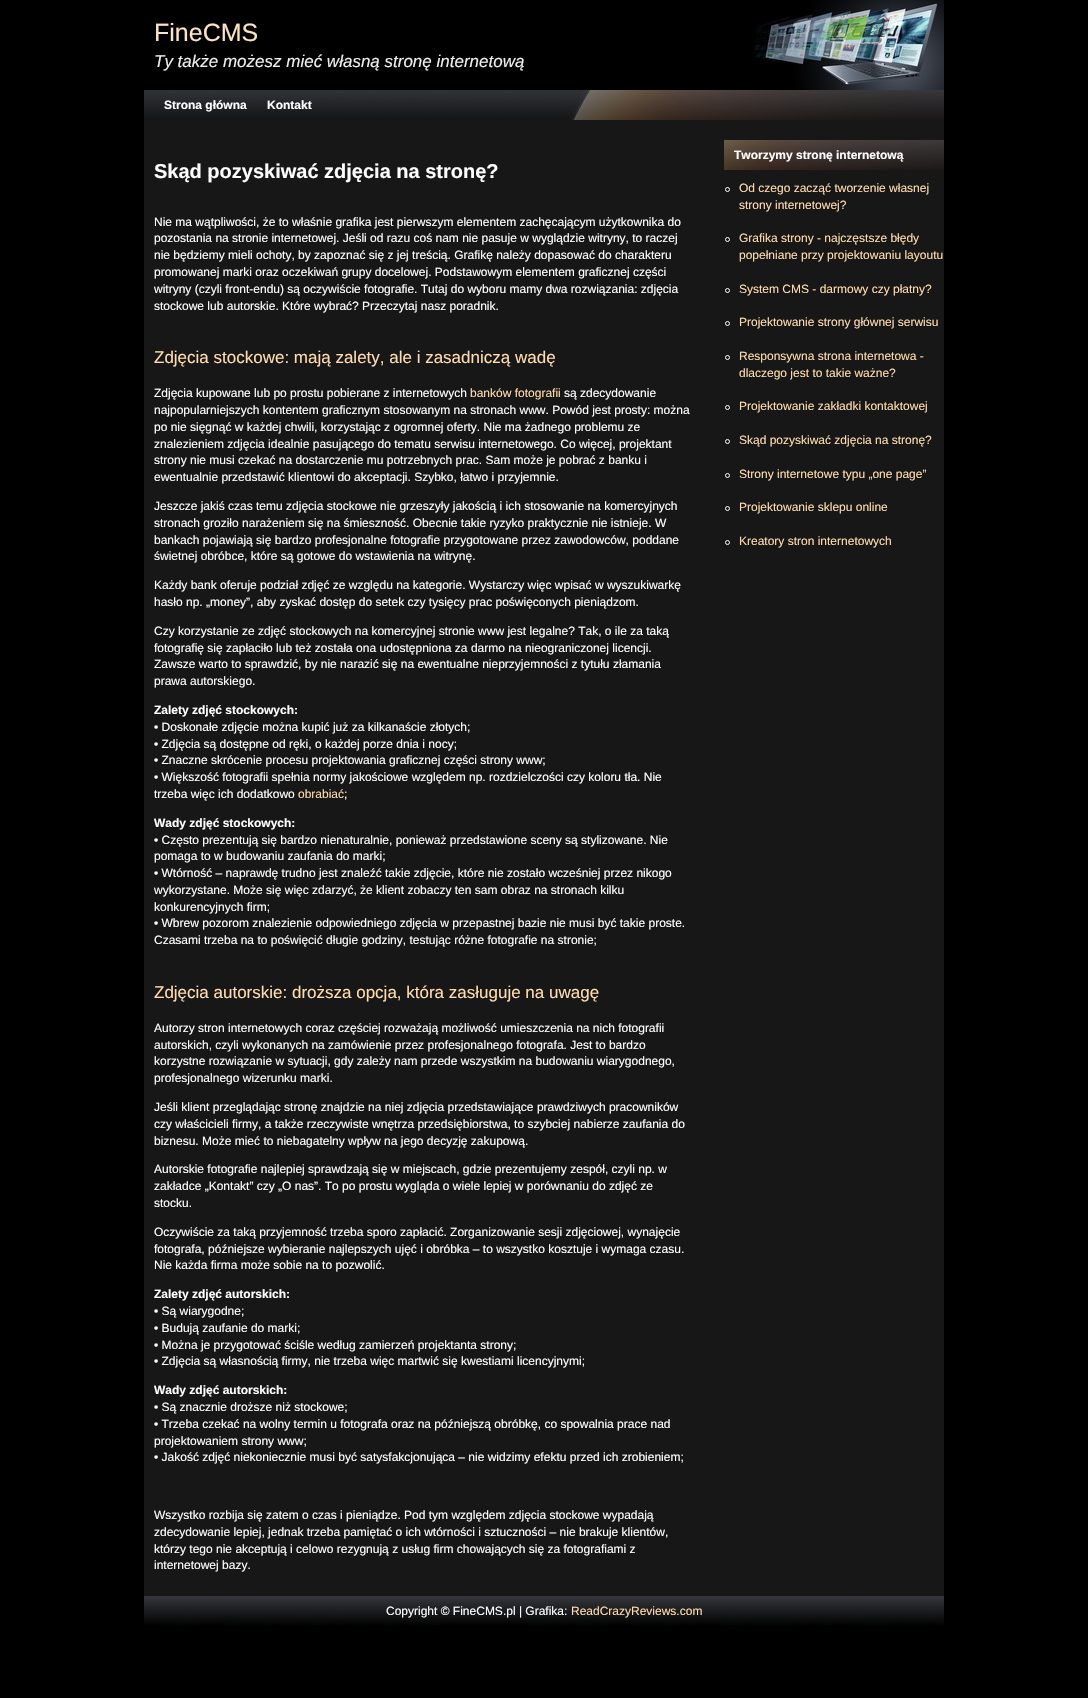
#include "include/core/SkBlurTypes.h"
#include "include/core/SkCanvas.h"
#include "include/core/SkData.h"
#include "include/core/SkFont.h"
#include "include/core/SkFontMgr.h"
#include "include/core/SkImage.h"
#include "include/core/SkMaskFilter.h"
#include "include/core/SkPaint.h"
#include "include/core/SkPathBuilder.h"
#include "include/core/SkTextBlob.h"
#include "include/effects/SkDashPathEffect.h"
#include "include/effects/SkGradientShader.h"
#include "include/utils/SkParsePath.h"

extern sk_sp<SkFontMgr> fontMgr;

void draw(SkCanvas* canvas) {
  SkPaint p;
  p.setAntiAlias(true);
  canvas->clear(SK_ColorBLACK);
  p.setColor(SkColorSetRGB(23, 23, 23));
  canvas->drawRect(SkRect::MakeLTRB(144, 120, 944, 1596), p);
  canvas->drawImageRect(SkImages::DeferredFromEncodedData(SkData::MakeFromFileName("images/1.png")), SkRect::MakeLTRB(144, 0, 944, 90), SkSamplingOptions());
  canvas->drawImageRect(SkImages::DeferredFromEncodedData(SkData::MakeFromFileName("images/2.png")), SkRect::MakeLTRB(144, 90, 944, 120), SkSamplingOptions());
  canvas->drawImageRect(SkImages::DeferredFromEncodedData(SkData::MakeFromFileName("images/3.png")), SkRect::MakeLTRB(724, 140, 944, 170), SkSamplingOptions());
  p.setStyle(SkPaint::kStroke_Style);
  p.setStrokeWidth(1);
  p.setColor(SkColorSetRGB(254, 254, 254));
  canvas->drawCircle(727.5f, 189.5f, 2, p);
  canvas->drawCircle(727.5f, 239.5f, 2, p);
  canvas->drawCircle(727.5f, 290.5f, 2, p);
  canvas->drawCircle(727.5f, 323.5f, 2, p);
  canvas->drawCircle(727.5f, 357.5f, 2, p);
  canvas->drawCircle(727.5f, 407.5f, 2, p);
  canvas->drawCircle(727.5f, 441.5f, 2, p);
  canvas->drawCircle(727.5f, 475.5f, 2, p);
  canvas->drawCircle(727.5f, 508.5f, 2, p);
  canvas->drawCircle(727.5f, 542.5f, 2, p);
  canvas->drawImageRect(SkImages::DeferredFromEncodedData(SkData::MakeFromFileName("images/4.png")), SkRect::MakeLTRB(144, 1596, 944, 1626), SkSamplingOptions());
  SkFont font1(fontMgr->matchFamilyStyle("Liberation Sans", SkFontStyle::Normal()), 25);
  font1.setSubpixel(true);
  p.setStyle(SkPaint::kFill_Style);
  p.setColor(SkColorSetRGB(255, 227, 191));
  canvas->drawString("FineCMS", 154, 41, font1, p);
  SkFont font2(fontMgr->matchFamilyStyle("Liberation Sans", SkFontStyle::Italic()), 17);
  font2.setSubpixel(true);
  p.setColor(SkColorSetRGB(238, 238, 238));
  canvas->drawString("Ty także możesz mieć własną stronę internetową", 154, 67, font2, p);
  SkFont font3(fontMgr->matchFamilyStyle("Liberation Sans", SkFontStyle::Bold()), 12);
  font3.setSubpixel(true);
  p.setColor(SK_ColorWHITE);
  canvas->drawString("Strona główna", 164, 109, font3, p);
  canvas->drawString("Kontakt", 267, 109, font3, p);
  SkFont font4(fontMgr->matchFamilyStyle("Liberation Sans", SkFontStyle::Bold()), 20);
  font4.setSubpixel(true);
  canvas->drawString("Skąd pozyskiwać zdjęcia na stronę?", 154, 178, font4, p);
  SkFont font5(fontMgr->matchFamilyStyle("Liberation Sans", SkFontStyle::Normal()), 12);
  font5.setSubpixel(true);
  canvas->drawString("Nie ma wątpliwości, że to właśnie grafika jest pierwszym elementem zachęcającym użytkownika do", 154, 226, font5, p);
  canvas->drawString("pozostania na stronie internetowej. Jeśli od razu coś nam nie pasuje w wyglądzie witryny, to raczej", 154, 242, font5, p);
  canvas->drawString("nie będziemy mieli ochoty, by zapoznać się z jej treścią. Grafikę należy dopasować do charakteru", 154, 259, font5, p);
  canvas->drawString("promowanej marki oraz oczekiwań grupy docelowej. Podstawowym elementem graficznej części", 154, 276, font5, p);
  canvas->drawString("witryny (czyli front-endu) są oczywiście fotografie. Tutaj do wyboru mamy dwa rozwiązania: zdjęcia", 154, 293, font5, p);
  canvas->drawString("stockowe lub autorskie. Które wybrać? Przeczytaj nasz poradnik.", 154, 310, font5, p);
  SkFont font6(fontMgr->matchFamilyStyle("Liberation Sans", SkFontStyle::Normal()), 17);
  font6.setSubpixel(true);
  p.setColor(SkColorSetRGB(255, 220, 175));
  canvas->drawString("Zdjęcia stockowe: mają zalety, ale i zasadniczą wadę", 154, 363, font6, p);
  p.setColor(SK_ColorWHITE);
  canvas->drawString("Zdjęcia kupowane lub po prostu pobierane z internetowych", 154, 397, font5, p);
  p.setColor(SkColorSetRGB(255, 220, 175));
  canvas->drawString("banków fotografii", 470, 397, font5, p);
  p.setColor(SK_ColorWHITE);
  canvas->drawString("są zdecydowanie", 564, 397, font5, p);
  canvas->drawString("najpopularniejszych kontentem graficznym stosowanym na stronach www. Powód jest prosty: można", 154, 414, font5, p);
  canvas->drawString("po nie sięgnąć w każdej chwili, korzystając z ogromnej oferty. Nie ma żadnego problemu ze", 154, 431, font5, p);
  canvas->drawString("znalezieniem zdjęcia idealnie pasującego do tematu serwisu internetowego. Co więcej, projektant", 154, 448, font5, p);
  canvas->drawString("strony nie musi czekać na dostarczenie mu potrzebnych prac. Sam może je pobrać z banku i", 154, 464, font5, p);
  canvas->drawString("ewentualnie przedstawić klientowi do akceptacji. Szybko, łatwo i przyjemnie.", 154, 481, font5, p);
  canvas->drawString("Jeszcze jakiś czas temu zdjęcia stockowe nie grzeszyły jakością i ich stosowanie na komercyjnych", 154, 510, font5, p);
  canvas->drawString("stronach groziło narażeniem się na śmieszność. Obecnie takie ryzyko praktycznie nie istnieje. W", 154, 527, font5, p);
  canvas->drawString("bankach pojawiają się bardzo profesjonalne fotografie przygotowane przez zawodowców, poddane", 154, 544, font5, p);
  canvas->drawString("świetnej obróbce, które są gotowe do wstawienia na witrynę.", 154, 560, font5, p);
  canvas->drawString("Każdy bank oferuje podział zdjęć ze względu na kategorie. Wystarczy więc wpisać w wyszukiwarkę", 154, 589, font5, p);
  canvas->drawString("hasło np. „money”, aby zyskać dostęp do setek czy tysięcy prac poświęconych pieniądzom.", 154, 606, font5, p);
  canvas->drawString("Czy korzystanie ze zdjęć stockowych na komercyjnej stronie www jest legalne? Tak, o ile za taką", 154, 635, font5, p);
  canvas->drawString("fotografię się zapłaciło lub też została ona udostępniona za darmo na nieograniczonej licencji.", 154, 652, font5, p);
  canvas->drawString("Zawsze warto to sprawdzić, by nie narazić się na ewentualne nieprzyjemności z tytułu złamania", 154, 668, font5, p);
  canvas->drawString("prawa autorskiego.", 154, 685, font5, p);
  canvas->drawString("Zalety zdjęć stockowych:", 154, 714, font3, p);
  canvas->drawString("• Doskonałe zdjęcie można kupić już za kilkanaście złotych;", 154, 731, font5, p);
  canvas->drawString("• Zdjęcia są dostępne od ręki, o każdej porze dnia i nocy;", 154, 748, font5, p);
  canvas->drawString("• Znaczne skrócenie procesu projektowania graficznej części strony www;", 154, 764, font5, p);
  canvas->drawString("• Większość fotografii spełnia normy jakościowe względem np. rozdzielczości czy koloru tła. Nie", 154, 781, font5, p);
  canvas->drawString("trzeba więc ich dodatkowo", 154, 798, font5, p);
  p.setColor(SkColorSetRGB(255, 220, 175));
  canvas->drawString("obrabiać", 298, 798, font5, p);
  p.setColor(SK_ColorWHITE);
  canvas->drawString(";", 344, 798, font5, p);
  canvas->drawString("Wady zdjęć stockowych:", 154, 827, font3, p);
  canvas->drawString("• Często prezentują się bardzo nienaturalnie, ponieważ przedstawione sceny są stylizowane. Nie", 154, 844, font5, p);
  canvas->drawString("pomaga to w budowaniu zaufania do marki;", 154, 860, font5, p);
  canvas->drawString("• Wtórność – naprawdę trudno jest znaleźć takie zdjęcie, które nie zostało wcześniej przez nikogo", 154, 877, font5, p);
  canvas->drawString("wykorzystane. Może się więc zdarzyć, że klient zobaczy ten sam obraz na stronach kilku", 154, 894, font5, p);
  canvas->drawString("konkurencyjnych firm;", 154, 911, font5, p);
  canvas->drawString("• Wbrew pozorom znalezienie odpowiedniego zdjęcia w przepastnej bazie nie musi być takie proste.", 154, 927, font5, p);
  canvas->drawString("Czasami trzeba na to poświęcić długie godziny, testując różne fotografie na stronie;", 154, 944, font5, p);
  p.setColor(SkColorSetRGB(255, 220, 175));
  canvas->drawString("Zdjęcia autorskie: droższa opcja, która zasługuje na uwagę", 154, 998, font6, p);
  p.setColor(SK_ColorWHITE);
  canvas->drawString("Autorzy stron internetowych coraz częściej rozważają możliwość umieszczenia na nich fotografii", 154, 1032, font5, p);
  canvas->drawString("autorskich, czyli wykonanych na zamówienie przez profesjonalnego fotografa. Jest to bardzo", 154, 1049, font5, p);
  canvas->drawString("korzystne rozwiązanie w sytuacji, gdy zależy nam przede wszystkim na budowaniu wiarygodnego,", 154, 1065, font5, p);
  canvas->drawString("profesjonalnego wizerunku marki.", 154, 1082, font5, p);
  canvas->drawString("Jeśli klient przeglądając stronę znajdzie na niej zdjęcia przedstawiające prawdziwych pracowników", 154, 1111, font5, p);
  canvas->drawString("czy właścicieli firmy, a także rzeczywiste wnętrza przedsiębiorstwa, to szybciej nabierze zaufania do", 154, 1128, font5, p);
  canvas->drawString("biznesu. Może mieć to niebagatelny wpływ na jego decyzję zakupową.", 154, 1145, font5, p);
  canvas->drawString("Autorskie fotografie najlepiej sprawdzają się w miejscach, gdzie prezentujemy zespół, czyli np. w", 154, 1173, font5, p);
  canvas->drawString("zakładce „Kontakt” czy „O nas”. To po prostu wygląda o wiele lepiej w porównaniu do zdjęć ze", 154, 1190, font5, p);
  canvas->drawString("stocku.", 154, 1207, font5, p);
  canvas->drawString("Oczywiście za taką przyjemność trzeba sporo zapłacić. Zorganizowanie sesji zdjęciowej, wynajęcie", 154, 1236, font5, p);
  canvas->drawString("fotografa, późniejsze wybieranie najlepszych ujęć i obróbka – to wszystko kosztuje i wymaga czasu.", 154, 1253, font5, p);
  canvas->drawString("Nie każda firma może sobie na to pozwolić.", 154, 1269, font5, p);
  canvas->drawString("Zalety zdjęć autorskich:", 154, 1298, font3, p);
  canvas->drawString("• Są wiarygodne;", 154, 1315, font5, p);
  canvas->drawString("• Budują zaufanie do marki;", 154, 1332, font5, p);
  canvas->drawString("• Można je przygotować ściśle według zamierzeń projektanta strony;", 154, 1349, font5, p);
  canvas->drawString("• Zdjęcia są własnością firmy, nie trzeba więc martwić się kwestiami licencyjnymi;", 154, 1365, font5, p);
  canvas->drawString("Wady zdjęć autorskich:", 154, 1394, font3, p);
  canvas->drawString("• Są znacznie droższe niż stockowe;", 154, 1411, font5, p);
  canvas->drawString("• Trzeba czekać na wolny termin u fotografa oraz na późniejszą obróbkę, co spowalnia prace nad", 154, 1428, font5, p);
  canvas->drawString("projektowaniem strony www;", 154, 1445, font5, p);
  canvas->drawString("• Jakość zdjęć niekoniecznie musi być satysfakcjonująca – nie widzimy efektu przed ich zrobieniem;", 154, 1461, font5, p);
  canvas->drawString("Wszystko rozbija się zatem o czas i pieniądze. Pod tym względem zdjęcia stockowe wypadają", 154, 1519, font5, p);
  canvas->drawString("zdecydowanie lepiej, jednak trzeba pamiętać o ich wtórności i sztuczności – nie brakuje klientów,", 154, 1536, font5, p);
  canvas->drawString("którzy tego nie akceptują i celowo rezygnują z usług firm chowających się za fotografiami z", 154, 1553, font5, p);
  canvas->drawString("internetowej bazy.", 154, 1569, font5, p);
  canvas->drawString("Tworzymy stronę internetową", 734, 159, font3, p);
  p.setColor(SkColorSetRGB(255, 220, 175));
  canvas->drawString("Od czego zacząć tworzenie własnej", 739, 192, font5, p);
  canvas->drawString("strony internetowej?", 739, 209, font5, p);
  canvas->drawString("Grafika strony - najczęstsze błędy", 739, 242, font5, p);
  canvas->drawString("popełniane przy projektowaniu layoutu", 739, 259, font5, p);
  canvas->drawString("System CMS - darmowy czy płatny?", 739, 293, font5, p);
  canvas->drawString("Projektowanie strony głównej serwisu", 739, 326, font5, p);
  canvas->drawString("Responsywna strona internetowa -", 739, 360, font5, p);
  canvas->drawString("dlaczego jest to takie ważne?", 739, 377, font5, p);
  canvas->drawString("Projektowanie zakładki kontaktowej", 739, 410, font5, p);
  canvas->drawString("Skąd pozyskiwać zdjęcia na stronę?", 739, 444, font5, p);
  canvas->drawString("Strony internetowe typu „one page”", 739, 478, font5, p);
  canvas->drawString("Projektowanie sklepu online", 739, 511, font5, p);
  canvas->drawString("Kreatory stron internetowych", 739, 545, font5, p);
  p.setColor(SK_ColorWHITE);
  canvas->drawString("Copyright © FineCMS.pl | Grafika:", 386, 1615, font5, p);
  p.setColor(SkColorSetRGB(255, 220, 175));
  canvas->drawString("ReadCrazyReviews.com", 571, 1615, font5, p);
}
